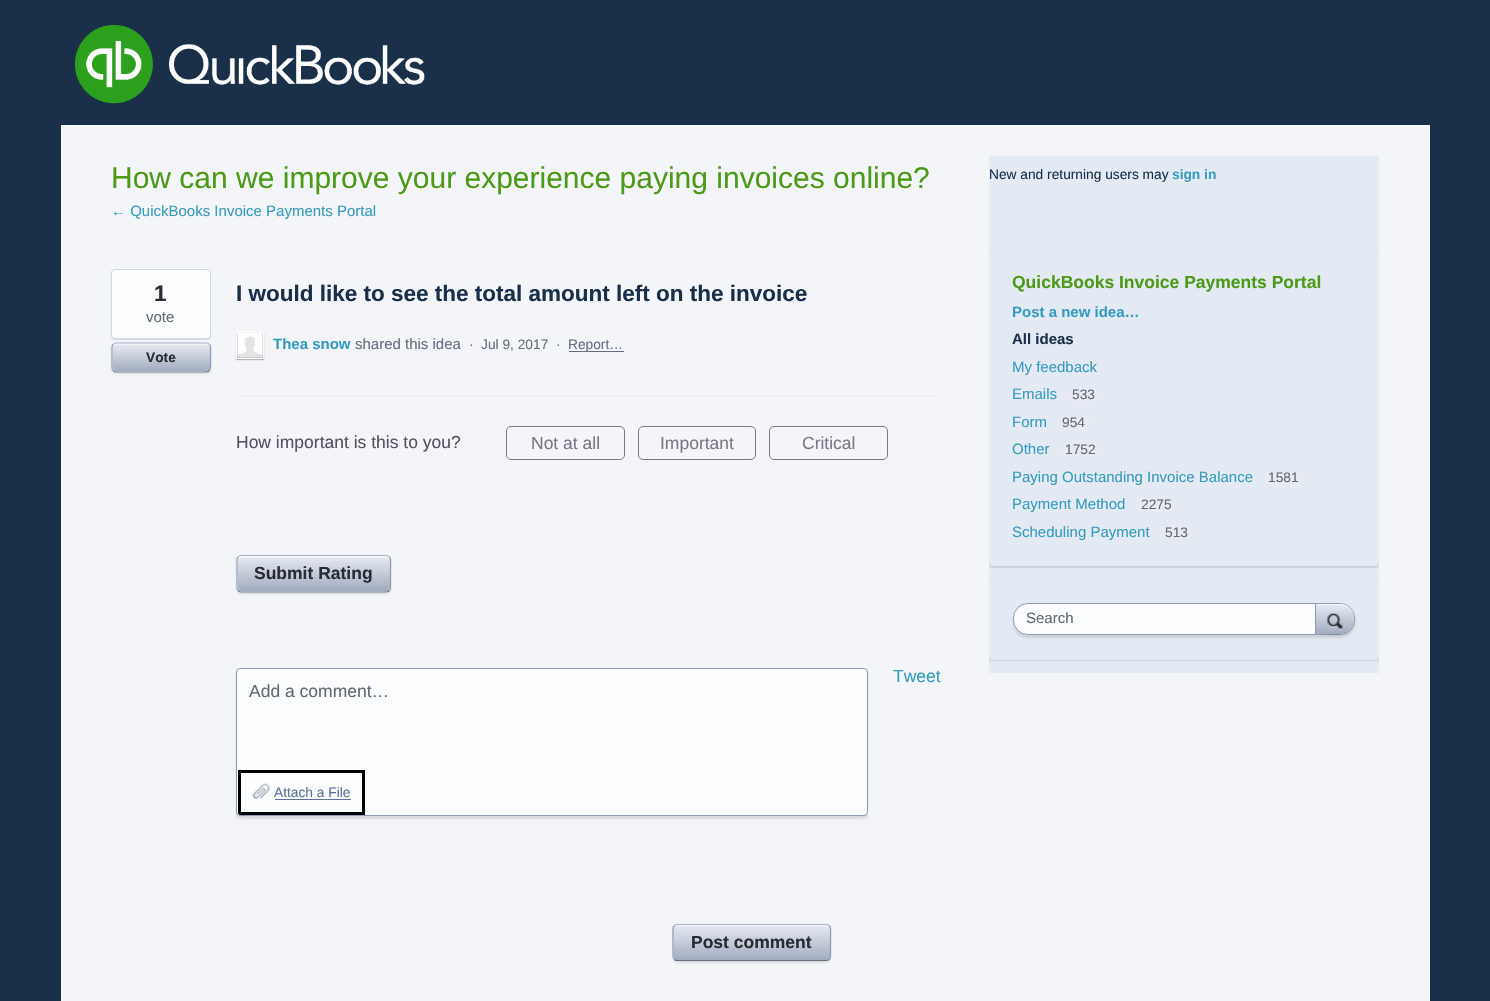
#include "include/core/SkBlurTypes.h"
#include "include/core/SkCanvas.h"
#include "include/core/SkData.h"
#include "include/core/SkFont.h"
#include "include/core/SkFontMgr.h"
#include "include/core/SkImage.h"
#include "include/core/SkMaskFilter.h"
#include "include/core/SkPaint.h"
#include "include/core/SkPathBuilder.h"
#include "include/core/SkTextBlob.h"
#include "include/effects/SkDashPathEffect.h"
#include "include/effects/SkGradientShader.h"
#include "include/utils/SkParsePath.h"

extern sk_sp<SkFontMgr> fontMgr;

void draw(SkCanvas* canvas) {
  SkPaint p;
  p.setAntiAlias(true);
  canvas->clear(SkColorSetRGB(25, 48, 72));
  canvas->drawImageRect(SkImages::DeferredFromEncodedData(SkData::MakeFromFileName("images/1.png")), SkRect::MakeLTRB(75, 25, 425, 104), SkSamplingOptions());
  p.setColor(SkColorSetRGB(243, 245, 248));
  canvas->drawRect(SkRect::MakeLTRB(61, 125, 1430, 1001), p);
  p.setColor(SkColorSetARGB(26, 0, 0, 0));
  p.setMaskFilter(SkMaskFilter::MakeBlur(kNormal_SkBlurStyle, 0.5f));
  canvas->drawRoundRect(SkRect::MakeLTRB(111, 270, 211, 340), 4, 4, p);
  p.setMaskFilter(nullptr);
  p.setColor(SkColorSetRGB(252, 253, 255));
  canvas->drawRoundRect(SkRect::MakeLTRB(111.5f, 269.5f, 210.5f, 338.5f), 3.5f, 3.5f, p);
  p.setStyle(SkPaint::kStroke_Style);
  p.setStrokeWidth(1);
  p.setColor(SkColorSetRGB(207, 215, 230));
  canvas->drawRoundRect(SkRect::MakeLTRB(111.5f, 269.5f, 210.5f, 338.5f), 3.5f, 3.5f, p);
  canvas->save();
  canvas->clipPath(SkPathBuilder(SkPathFillType::kEvenOdd).moveTo(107, 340).lineTo(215, 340).lineTo(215, 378).lineTo(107, 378).close().moveTo(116, 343).lineTo(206, 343).cubicTo(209, 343, 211, 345, 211, 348).lineTo(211, 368).cubicTo(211, 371, 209, 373, 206, 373).lineTo(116, 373).cubicTo(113, 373, 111, 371, 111, 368).lineTo(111, 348).cubicTo(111, 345, 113, 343, 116, 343).close().detach(), true);
  p.setStyle(SkPaint::kFill_Style);
  p.setColor(SkColorSetARGB(26, 0, 0, 0));
  p.setMaskFilter(SkMaskFilter::MakeBlur(kNormal_SkBlurStyle, 1));
  canvas->drawRoundRect(SkRect::MakeLTRB(111, 344, 211, 374), 5, 5, p);
  p.setMaskFilter(nullptr);
  canvas->restore();
  {
    const SkColor colors[] = {SkColorSetRGB(230, 234, 242), SkColorSetRGB(162, 172, 191)};
    const float stops[] = {0, 1};
    const SkPoint ends[] = {{113, 344}, {113, 371}};
    p.setShader(SkGradientShader::MakeLinear(ends, colors, stops, 2, SkTileMode::kClamp));
    p.setAlpha(255);
  }
  canvas->drawRoundRect(SkRect::MakeLTRB(113, 344, 210, 371), 4, 4, p);
  p.setShader(nullptr);
  p.setColor(SkColorSetARGB(128, 255, 255, 255));
  canvas->drawPath(SkPathBuilder().moveTo(116, 345).lineTo(206, 345).cubicTo(208, 345, 210, 347, 210, 349).cubicTo(210, 348, 210, 346, 209, 345).lineTo(206, 344).lineTo(116, 344).lineTo(114, 346).close().detach(), p);
  p.setStyle(SkPaint::kStroke_Style);
  p.setStrokeWidth(1.2f);
  p.setColor(SkColorSetRGB(163, 177, 204));
  canvas->drawPath(SkPathBuilder().moveTo(113, 344.5f).cubicTo(114, 343.5f, 115, 343, 116, 343).lineTo(206, 343).cubicTo(207.5f, 343, 208.5f, 343.5f, 209.5f, 344.5f).detach(), p);
  p.setColor(SkColorSetRGB(143, 155, 179));
  canvas->drawPath(SkPathBuilder().moveTo(209.5f, 344.5f).cubicTo(210, 345, 210.5f, 346.5f, 210.5f, 347.5f).lineTo(210.5f, 367.5f).cubicTo(210.5f, 368.5f, 210, 370, 209.5f, 370.5f).detach(), p);
  p.setColor(SkColorSetRGB(102, 111, 128));
  canvas->drawPath(SkPathBuilder().moveTo(209.5f, 370.5f).cubicTo(208.5f, 371.5f, 207.5f, 372, 206, 372).lineTo(116, 372).cubicTo(115, 372, 114, 371.5f, 113, 370.5f).detach(), p);
  p.setColor(SkColorSetRGB(143, 155, 179));
  canvas->drawPath(SkPathBuilder().moveTo(113, 370.5f).cubicTo(112.5f, 370, 112, 368.5f, 112, 367.5f).lineTo(112, 347.5f).cubicTo(112, 346.5f, 112.5f, 345, 113, 344.5f).detach(), p);
  p.setStyle(SkPaint::kFill_Style);
  p.setColor(SkColorSetARGB(64, 0, 0, 0));
  p.setMaskFilter(SkMaskFilter::MakeBlur(kNormal_SkBlurStyle, 0.5f));
  canvas->drawRect(SkRect::MakeLTRB(236, 333, 264, 360), p);
  p.setMaskFilter(nullptr);
  p.setStyle(SkPaint::kStroke_Style);
  p.setStrokeWidth(1);
  p.setColor(SK_ColorWHITE);
  canvas->drawRect(SkRect::MakeLTRB(236.5f, 331.5f, 263.5f, 358.5f), p);
  canvas->drawImageRect(SkImages::DeferredFromEncodedData(SkData::MakeFromFileName("images/2.png")), SkRect::MakeLTRB(237, 332, 263, 358), SkSamplingOptions());
  p.setStyle(SkPaint::kFill_Style);
  p.setColor(SkColorSetRGB(102, 111, 128));
  canvas->drawRect(SkRect::MakeLTRB(569, 351, 624, 352), p);
  p.setColor(SkColorSetRGB(235, 235, 241));
  canvas->drawRect(SkRect::MakeLTRB(236, 395, 940, 396), p);
  p.setStyle(SkPaint::kStroke_Style);
  p.setColor(SkColorSetRGB(121, 121, 134));
  canvas->drawRoundRect(SkRect::MakeLTRB(506.5f, 426.5f, 624.5f, 459.5f), 4.5f, 4.5f, p);
  canvas->drawRoundRect(SkRect::MakeLTRB(638.5f, 426.5f, 755.5f, 459.5f), 4.5f, 4.5f, p);
  canvas->drawRoundRect(SkRect::MakeLTRB(769.5f, 426.5f, 887.5f, 459.5f), 4.5f, 4.5f, p);
  canvas->save();
  canvas->clipPath(SkPathBuilder(SkPathFillType::kEvenOdd).moveTo(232, 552).lineTo(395, 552).lineTo(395, 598).lineTo(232, 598).close().moveTo(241, 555).lineTo(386, 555).cubicTo(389, 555, 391, 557, 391, 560).lineTo(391, 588).cubicTo(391, 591, 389, 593, 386, 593).lineTo(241, 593).cubicTo(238, 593, 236, 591, 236, 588).lineTo(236, 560).cubicTo(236, 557, 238, 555, 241, 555).close().detach(), true);
  p.setStyle(SkPaint::kFill_Style);
  p.setColor(SkColorSetARGB(26, 0, 0, 0));
  p.setMaskFilter(SkMaskFilter::MakeBlur(kNormal_SkBlurStyle, 1));
  canvas->drawRoundRect(SkRect::MakeLTRB(236, 556, 391, 594), 5, 5, p);
  p.setMaskFilter(nullptr);
  canvas->restore();
  {
    const SkColor colors[] = {SkColorSetRGB(230, 234, 242), SkColorSetRGB(162, 172, 191)};
    const float stops[] = {0, 1};
    const SkPoint ends[] = {{238, 556}, {238, 591}};
    p.setShader(SkGradientShader::MakeLinear(ends, colors, stops, 2, SkTileMode::kClamp));
    p.setAlpha(255);
  }
  canvas->drawRoundRect(SkRect::MakeLTRB(238, 556, 390, 591), 4, 4, p);
  p.setShader(nullptr);
  p.setColor(SkColorSetARGB(128, 255, 255, 255));
  canvas->drawPath(SkPathBuilder().moveTo(241, 558).lineTo(386, 558).cubicTo(388, 558, 390, 559, 390, 561).cubicTo(390, 559, 389, 557, 387, 556).lineTo(242, 556).cubicTo(239, 556, 238, 558, 238, 561).cubicTo(238, 559, 239, 558, 241, 558).close().detach(), p);
  p.setStyle(SkPaint::kStroke_Style);
  p.setStrokeWidth(1.2f);
  p.setColor(SkColorSetRGB(163, 177, 204));
  canvas->drawPath(SkPathBuilder().moveTo(238, 557).cubicTo(239, 556, 240, 555.5f, 241, 555.5f).lineTo(386, 555.5f).cubicTo(387.5f, 555.5f, 388.5f, 556, 389.5f, 557).detach(), p);
  p.setColor(SkColorSetRGB(143, 155, 179));
  canvas->drawPath(SkPathBuilder().moveTo(389.5f, 557).cubicTo(390, 557.5f, 390.5f, 559, 390.5f, 560).lineTo(390.5f, 587.5f).cubicTo(390.5f, 588.5f, 390, 590, 389.5f, 590.5f).detach(), p);
  p.setColor(SkColorSetRGB(102, 111, 128));
  canvas->drawPath(SkPathBuilder().moveTo(389.5f, 590.5f).cubicTo(388.5f, 591.5f, 387.5f, 592, 386, 592).lineTo(241, 592).cubicTo(240, 592, 239, 591.5f, 238, 590.5f).detach(), p);
  p.setColor(SkColorSetRGB(143, 155, 179));
  canvas->drawPath(SkPathBuilder().moveTo(238, 590.5f).cubicTo(237.5f, 590, 237, 588.5f, 237, 587.5f).lineTo(237, 560).cubicTo(237, 559, 237.5f, 557.5f, 238, 557).detach(), p);
  p.setStyle(SkPaint::kFill_Style);
  p.setColor(SkColorSetARGB(26, 0, 0, 0));
  p.setMaskFilter(SkMaskFilter::MakeBlur(kNormal_SkBlurStyle, 1));
  canvas->drawRoundRect(SkRect::MakeLTRB(236, 670, 868, 819), 4, 4, p);
  p.setMaskFilter(nullptr);
  p.setColor(SkColorSetRGB(252, 253, 255));
  canvas->drawRoundRect(SkRect::MakeLTRB(236.5f, 668.5f, 867.5f, 815.5f), 3.5f, 3.5f, p);
  p.setStyle(SkPaint::kStroke_Style);
  p.setStrokeWidth(1);
  p.setColor(SkColorSetRGB(143, 155, 179));
  canvas->drawRoundRect(SkRect::MakeLTRB(236.5f, 668.5f, 867.5f, 815.5f), 3.5f, 3.5f, p);
  canvas->drawImageRect(SkImages::DeferredFromEncodedData(SkData::MakeFromFileName("images/3.png")), SkRect::MakeLTRB(252, 783, 271, 799), SkSamplingOptions());
  p.setStyle(SkPaint::kFill_Style);
  p.setColor(SK_ColorBLACK);
  canvas->drawPath(SkPathBuilder(SkPathFillType::kEvenOdd).moveTo(238, 770).lineTo(238, 812).cubicTo(238, 814, 239, 815, 240, 815).lineTo(365, 815).lineTo(365, 770).close().moveTo(241, 773).lineTo(241, 812).lineTo(362, 812).lineTo(362, 773).close().detach(), p);
  p.setColor(SkColorSetRGB(93, 114, 152));
  canvas->drawRect(SkRect::MakeLTRB(275, 799, 351, 800), p);
  p.setColor(SkColorSetARGB(26, 0, 0, 0));
  p.setMaskFilter(SkMaskFilter::MakeBlur(kNormal_SkBlurStyle, 1));
  canvas->drawRoundRect(SkRect::MakeLTRB(673, 925, 831, 963), 5, 5, p);
  p.setMaskFilter(nullptr);
  {
    const SkColor colors[] = {SkColorSetRGB(230, 234, 242), SkColorSetRGB(162, 172, 191)};
    const float stops[] = {0, 1};
    const SkPoint ends[] = {{674, 925}, {674, 960}};
    p.setShader(SkGradientShader::MakeLinear(ends, colors, stops, 2, SkTileMode::kClamp));
    p.setAlpha(255);
  }
  canvas->drawRoundRect(SkRect::MakeLTRB(674, 925, 830, 960), 4, 4, p);
  p.setShader(nullptr);
  p.setColor(SkColorSetARGB(128, 255, 255, 255));
  canvas->drawPath(SkPathBuilder().moveTo(678, 926).lineTo(826, 926).cubicTo(828, 926, 830, 928, 830, 930).cubicTo(830, 928, 829, 926, 827, 925).lineTo(677, 925).cubicTo(675, 926, 674, 928, 674, 930).cubicTo(674, 928, 675, 926, 678, 926).close().detach(), p);
  p.setStyle(SkPaint::kStroke_Style);
  p.setStrokeWidth(1.2f);
  p.setColor(SkColorSetRGB(163, 177, 204));
  canvas->drawPath(SkPathBuilder().moveTo(674.5f, 925.5f).cubicTo(675, 925, 676.5f, 924.5f, 677.5f, 924.5f).lineTo(826, 924.5f).cubicTo(827.5f, 924.5f, 828.5f, 925, 829.5f, 925.5f).detach(), p);
  p.setColor(SkColorSetRGB(143, 155, 179));
  canvas->drawPath(SkPathBuilder().moveTo(829.5f, 925.5f).cubicTo(830, 926.5f, 830.5f, 927.5f, 830.5f, 929).lineTo(830.5f, 956).cubicTo(830.5f, 957.5f, 830, 958.5f, 829.5f, 959.5f).detach(), p);
  p.setColor(SkColorSetRGB(102, 111, 128));
  canvas->drawPath(SkPathBuilder().moveTo(829.5f, 959.5f).cubicTo(828.5f, 960, 827.5f, 960.5f, 826, 960.5f).lineTo(677.5f, 960.5f).cubicTo(676.5f, 960.5f, 675, 960, 674.5f, 959.5f).detach(), p);
  p.setColor(SkColorSetRGB(143, 155, 179));
  canvas->drawPath(SkPathBuilder().moveTo(674.5f, 959.5f).cubicTo(673.5f, 958.5f, 673, 957.5f, 673, 956).lineTo(673, 929).cubicTo(673, 927.5f, 673.5f, 926.5f, 674.5f, 925.5f).detach(), p);
  p.setStyle(SkPaint::kFill_Style);
  p.setColor(SkColorSetRGB(227, 234, 243));
  canvas->drawRect(SkRect::MakeLTRB(989, 156, 1379, 673), p);
  canvas->save();
  canvas->clipPath(SkPathBuilder(SkPathFillType::kEvenOdd).moveTo(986, 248).lineTo(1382, 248).lineTo(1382, 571).lineTo(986, 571).close().moveTo(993, 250).lineTo(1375, 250).cubicTo(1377, 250, 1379, 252, 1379, 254).lineTo(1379, 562).cubicTo(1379, 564, 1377, 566, 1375, 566).lineTo(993, 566).cubicTo(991, 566, 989, 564, 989, 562).lineTo(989, 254).cubicTo(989, 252, 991, 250, 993, 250).close().detach(), true);
  p.setColor(SkColorSetARGB(26, 0, 0, 0));
  p.setMaskFilter(SkMaskFilter::MakeBlur(kNormal_SkBlurStyle, 0.5f));
  canvas->drawRoundRect(SkRect::MakeLTRB(989, 251, 1379, 568), 4, 4, p);
  p.setMaskFilter(nullptr);
  canvas->restore();
  p.setColor(SkColorSetRGB(231, 234, 242));
  canvas->drawRoundRect(SkRect::MakeLTRB(1065, 388, 1103, 403), 7.5f, 7.5f, p);
  canvas->drawRoundRect(SkRect::MakeLTRB(1055, 415, 1093, 430), 7.5f, 7.5f, p);
  canvas->drawRoundRect(SkRect::MakeLTRB(1058, 443, 1103, 458), 7.5f, 7.5f, p);
  canvas->drawRoundRect(SkRect::MakeLTRB(1261, 470, 1305, 485), 7.5f, 7.5f, p);
  canvas->drawRoundRect(SkRect::MakeLTRB(1134, 498, 1178, 513), 7.5f, 7.5f, p);
  canvas->drawRoundRect(SkRect::MakeLTRB(1158, 525, 1195, 540), 7.5f, 7.5f, p);
  canvas->save();
  canvas->clipPath(SkPathBuilder(SkPathFillType::kEvenOdd).moveTo(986, 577).lineTo(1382, 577).lineTo(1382, 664).lineTo(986, 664).close().moveTo(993, 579).lineTo(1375, 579).cubicTo(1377, 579, 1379, 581, 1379, 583).lineTo(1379, 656).cubicTo(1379, 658, 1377, 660, 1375, 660).lineTo(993, 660).cubicTo(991, 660, 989, 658, 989, 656).lineTo(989, 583).cubicTo(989, 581, 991, 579, 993, 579).close().detach(), true);
  p.setColor(SkColorSetARGB(26, 0, 0, 0));
  p.setMaskFilter(SkMaskFilter::MakeBlur(kNormal_SkBlurStyle, 0.5f));
  canvas->drawRoundRect(SkRect::MakeLTRB(989, 580, 1379, 661), 4, 4, p);
  p.setMaskFilter(nullptr);
  canvas->restore();
  p.setMaskFilter(SkMaskFilter::MakeBlur(kNormal_SkBlurStyle, 1));
  canvas->drawRoundRect(SkRect::MakeLTRB(1013, 605, 1355, 638), 15, 15, p);
  p.setMaskFilter(nullptr);
  p.setColor(SkColorSetRGB(252, 253, 255));
  canvas->drawRoundRect(SkRect::MakeLTRB(1013.5f, 603.5f, 1354.5f, 634.5f), 14.5f, 14.5f, p);
  p.setStyle(SkPaint::kStroke_Style);
  p.setStrokeWidth(1);
  p.setColor(SkColorSetRGB(143, 155, 179));
  canvas->drawRoundRect(SkRect::MakeLTRB(1013.5f, 603.5f, 1354.5f, 634.5f), 14.5f, 14.5f, p);
  canvas->save();
  canvas->clipPath(SkPathBuilder(SkPathFillType::kEvenOdd).moveTo(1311, 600).lineTo(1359, 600).lineTo(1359, 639).lineTo(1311, 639).close().moveTo(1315, 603).lineTo(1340, 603).cubicTo(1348.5f, 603, 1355, 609.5f, 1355, 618).lineTo(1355, 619).cubicTo(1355, 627.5f, 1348.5f, 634, 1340, 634).lineTo(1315, 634).close().detach(), true);
  p.setStyle(SkPaint::kFill_Style);
  p.setColor(SkColorSetARGB(26, 0, 0, 0));
  p.setMaskFilter(SkMaskFilter::MakeBlur(kNormal_SkBlurStyle, 1));
  canvas->drawRoundRect(SkRect::MakeLTRB(1315, 604, 1355, 635), 15, 15, p);
  p.setMaskFilter(nullptr);
  canvas->restore();
  {
    const SkColor colors[] = {SkColorSetRGB(230, 234, 242), SkColorSetRGB(162, 172, 191)};
    const float stops[] = {0, 1};
    const SkPoint ends[] = {{1316, 604}, {1316, 634}};
    p.setShader(SkGradientShader::MakeLinear(ends, colors, stops, 2, SkTileMode::kClamp));
    p.setAlpha(255);
  }
  canvas->drawPath(SkPathBuilder().moveTo(1316, 604).lineTo(1316, 634).lineTo(1332, 634).cubicTo(1336.5f, 634, 1341.5f, 634.5f, 1345.5f, 633).cubicTo(1359, 626.5f, 1355.5f, 604, 1340, 604).close().detach(), p);
  p.setShader(nullptr);
  p.setColor(SkColorSetARGB(128, 255, 255, 255));
  canvas->drawPath(SkPathBuilder().moveTo(1316, 605).lineTo(1316, 604).lineTo(1342, 604).cubicTo(1348, 605, 1353, 609.5f, 1353.5f, 615.5f).cubicTo(1352, 609.5f, 1347, 605, 1340, 605).close().detach(), p);
  p.setColor(SkColorSetRGB(143, 155, 179));
  canvas->drawPath(SkPathBuilder().moveTo(1346, 632.5f).lineTo(1342.5f, 634).cubicTo(1349.5f, 632.5f, 1354, 626, 1354, 619).cubicTo(1354, 625, 1351.5f, 630, 1346, 632.5f).close().detach(), p);
  canvas->drawRect(SkRect::MakeLTRB(1315, 604, 1316, 634), p);
  canvas->drawImageRect(SkImages::DeferredFromEncodedData(SkData::MakeFromFileName("images/4.png")), SkRect::MakeLTRB(1327, 613, 1343, 631), SkSamplingOptions());
  SkFont font1(fontMgr->matchFamilyStyle("Liberation Sans", SkFontStyle::Normal()), 30);
  font1.setSubpixel(true);
  p.setColor(SkColorSetRGB(76, 154, 24));
  canvas->drawString("How can we improve your experience paying invoices online?", 111, 188, font1, p);
  SkFont font2(fontMgr->matchFamilyStyle("Liberation Sans", SkFontStyle::Normal()), 15);
  font2.setSubpixel(true);
  p.setColor(SkColorSetRGB(55, 155, 189));
  canvas->drawString("← QuickBooks Invoice Payments Portal", 111, 216, font2, p);
  SkFont font3(fontMgr->matchFamilyStyle("Liberation Sans", SkFontStyle::Bold()), 22.5f);
  font3.setSubpixel(true);
  p.setColor(SkColorSetRGB(41, 44, 51));
  canvas->drawString("1", 154, 301, font3, p);
  p.setColor(SkColorSetRGB(97, 105, 115));
  canvas->drawString("vote", 146, 322, font2, p);
  SkFont font4(fontMgr->matchFamilyStyle("Liberation Sans", SkFontStyle::Bold()), 13.75f);
  font4.setSubpixel(true);
  p.setColor(SkColorSetRGB(41, 44, 51));
  canvas->drawString("Vote", 146, 362, font4, p);
  p.setColor(SkColorSetRGB(25, 48, 72));
  canvas->drawString("I would like to see the total amount left on the invoice", 236, 301, font3, p);
  SkFont font5(fontMgr->matchFamilyStyle("Liberation Sans", SkFontStyle::Bold()), 15);
  font5.setSubpixel(true);
  p.setColor(SkColorSetRGB(55, 155, 189));
  canvas->drawString("Thea snow", 273, 349, font5, p);
  p.setColor(SkColorSetRGB(102, 111, 128));
  canvas->drawString("shared this idea", 355, 349, font2, p);
  SkFont font6(fontMgr->matchFamilyStyle("Liberation Sans", SkFontStyle::Normal()), 13.75f);
  font6.setSubpixel(true);
  p.setColor(SkColorSetRGB(97, 105, 115));
  canvas->drawString("·", 469, 349, font6, p);
  p.setColor(SkColorSetRGB(102, 111, 128));
  canvas->drawString("Jul 9, 2017", 481, 349, font6, p);
  p.setColor(SkColorSetRGB(97, 105, 115));
  canvas->drawString("·", 556, 349, font6, p);
  p.setColor(SkColorSetRGB(102, 111, 128));
  canvas->drawString("Report…", 568, 349, font6, p);
  SkFont font7(fontMgr->matchFamilyStyle("Liberation Sans", SkFontStyle::Normal()), 17.5f);
  font7.setSubpixel(true);
  p.setColor(SkColorSetRGB(82, 82, 96));
  canvas->drawString("How important is this to you?", 236, 448, font7, p);
  p.setColor(SkColorSetRGB(121, 121, 134));
  canvas->drawString("Not at all", 531, 449, font7, p);
  canvas->drawString("Important", 660, 449, font7, p);
  canvas->drawString("Critical", 802, 449, font7, p);
  SkFont font8(fontMgr->matchFamilyStyle("Liberation Sans", SkFontStyle::Bold()), 17.5f);
  font8.setSubpixel(true);
  p.setColor(SkColorSetRGB(41, 44, 51));
  canvas->drawString("Submit Rating", 254, 579, font8, p);
  p.setColor(SkColorSetRGB(55, 155, 189));
  canvas->drawString("Tweet", 893, 682, font7, p);
  p.setColor(SkColorSetRGB(97, 105, 115));
  canvas->drawString("Add a comment…", 249, 697, font7, p);
  p.setColor(SkColorSetRGB(93, 114, 152));
  canvas->drawString("Attach a File", 274, 797, font6, p);
  p.setColor(SkColorSetRGB(41, 44, 51));
  canvas->drawString("Post comment", 691, 948, font8, p);
  p.setColor(SkColorSetRGB(25, 48, 72));
  canvas->drawString("New and returning users may", 989, 179, font6, p);
  p.setColor(SkColorSetRGB(55, 155, 189));
  canvas->drawString("sign in", 1172, 179, font4, p);
  p.setColor(SkColorSetRGB(76, 154, 24));
  canvas->drawString("QuickBooks Invoice Payments Portal", 1012, 288, font8, p);
  p.setColor(SkColorSetRGB(55, 155, 189));
  canvas->drawString("Post a new idea…", 1012, 317, font5, p);
  p.setColor(SkColorSetRGB(25, 48, 72));
  canvas->drawString("All ideas", 1012, 344, font5, p);
  p.setColor(SkColorSetRGB(55, 155, 189));
  canvas->drawString("My feedback", 1012, 372, font2, p);
  canvas->drawString("Emails", 1012, 399, font2, p);
  p.setColor(SkColorSetRGB(97, 105, 115));
  canvas->drawString("533", 1072, 399, font6, p);
  p.setColor(SkColorSetRGB(55, 155, 189));
  canvas->drawString("Form", 1012, 427, font2, p);
  p.setColor(SkColorSetRGB(97, 105, 115));
  canvas->drawString("954", 1062, 427, font6, p);
  p.setColor(SkColorSetRGB(55, 155, 189));
  canvas->drawString("Other", 1012, 454, font2, p);
  p.setColor(SkColorSetRGB(97, 105, 115));
  canvas->drawString("1752", 1065, 454, font6, p);
  p.setColor(SkColorSetRGB(55, 155, 189));
  canvas->drawString("Paying Outstanding Invoice Balance", 1012, 482, font2, p);
  p.setColor(SkColorSetRGB(97, 105, 115));
  canvas->drawString("1581", 1268, 482, font6, p);
  p.setColor(SkColorSetRGB(55, 155, 189));
  canvas->drawString("Payment Method", 1012, 509, font2, p);
  p.setColor(SkColorSetRGB(97, 105, 115));
  canvas->drawString("2275", 1141, 509, font6, p);
  p.setColor(SkColorSetRGB(55, 155, 189));
  canvas->drawString("Scheduling Payment", 1012, 537, font2, p);
  p.setColor(SkColorSetRGB(97, 105, 115));
  canvas->drawString("513", 1165, 537, font6, p);
  canvas->drawString("Search", 1026, 623, font2, p);
}
